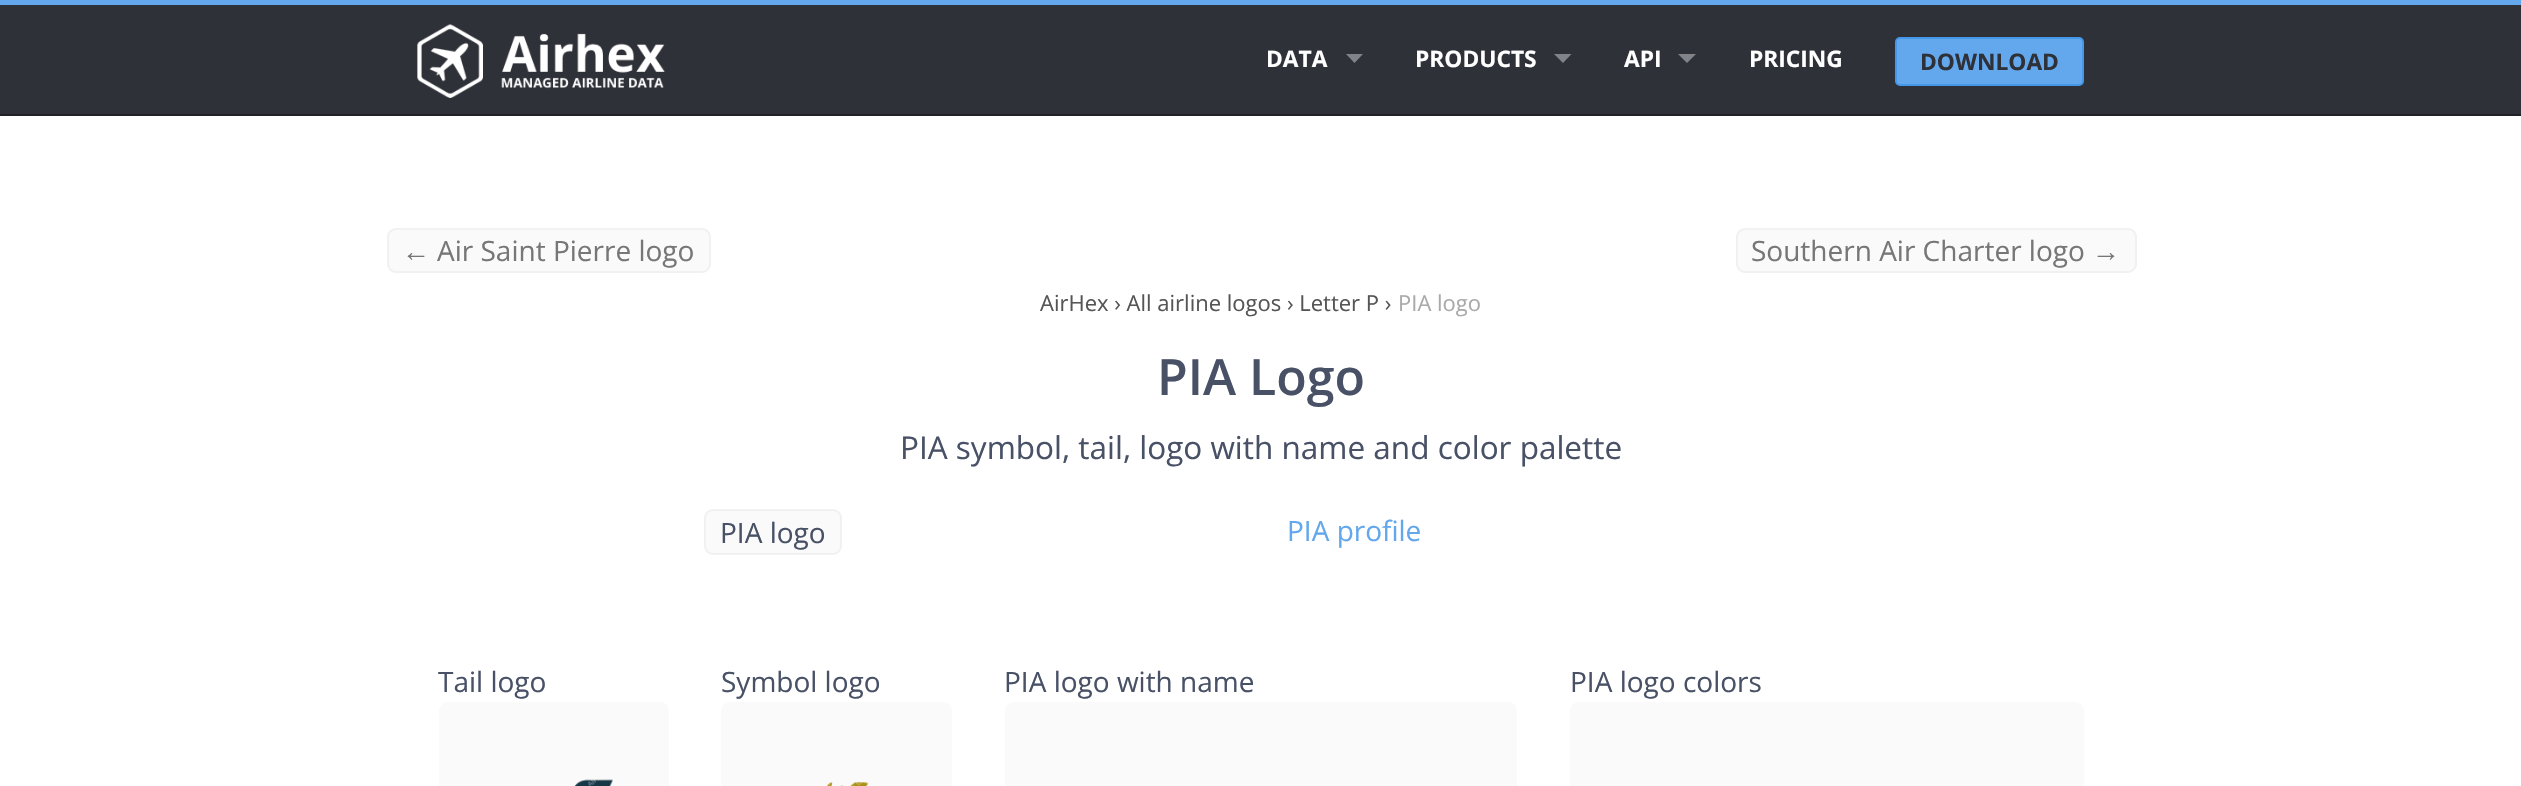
#include "include/core/SkBlurTypes.h"
#include "include/core/SkCanvas.h"
#include "include/core/SkData.h"
#include "include/core/SkFont.h"
#include "include/core/SkFontMgr.h"
#include "include/core/SkImage.h"
#include "include/core/SkMaskFilter.h"
#include "include/core/SkPaint.h"
#include "include/core/SkPathBuilder.h"
#include "include/core/SkTextBlob.h"
#include "include/effects/SkDashPathEffect.h"
#include "include/effects/SkGradientShader.h"
#include "include/utils/SkParsePath.h"

extern sk_sp<SkFontMgr> fontMgr;

void draw(SkCanvas* canvas) {
  SkPaint p;
  p.setAntiAlias(true);
  canvas->clear(SK_ColorWHITE);
  p.setColor(SkColorSetRGB(46, 49, 56));
  canvas->drawRect(SkRect::MakeLTRB(0, 5, 2521, 114), p);
  p.setColor(SkColorSetRGB(99, 167, 237));
  canvas->drawRect(SkRect::MakeLTRB(0, 0, 2521, 5), p);
  p.setColor(SkColorSetRGB(32, 34, 39));
  canvas->drawRect(SkRect::MakeLTRB(0, 114, 2521, 116), p);
  canvas->drawImageRect(SkImages::DeferredFromEncodedData(SkData::MakeFromFileName("images/1.png")), SkRect::MakeLTRB(417, 24, 665, 98), SkSamplingOptions());
  p.setColor(SkColorSetRGB(130, 131, 136));
  canvas->drawPath(SkPathBuilder().moveTo(1346, 54).lineTo(1363, 54).lineTo(1354.5f, 63).close().detach(), p);
  canvas->drawPath(SkPathBuilder().moveTo(1554, 54).lineTo(1571.5f, 54).lineTo(1563, 63).close().detach(), p);
  canvas->drawPath(SkPathBuilder().moveTo(1678, 54).lineTo(1696, 54).lineTo(1687, 63).close().detach(), p);
  p.setColor(SkColorSetRGB(99, 167, 237));
  canvas->drawRoundRect(SkRect::MakeLTRB(1896, 38, 2083, 85), 4, 4, p);
  p.setStyle(SkPaint::kStroke_Style);
  p.setStrokeWidth(2);
  p.setColor(SkColorSetRGB(69, 151, 234));
  canvas->drawRoundRect(SkRect::MakeLTRB(1896, 38, 2083, 85), 4, 4, p);
  p.setStyle(SkPaint::kFill_Style);
  p.setColor(SkColorSetRGB(250, 250, 250));
  canvas->drawRoundRect(SkRect::MakeLTRB(388, 229, 710, 272), 8, 8, p);
  p.setStyle(SkPaint::kStroke_Style);
  p.setColor(SkColorSetRGB(241, 241, 241));
  canvas->drawRoundRect(SkRect::MakeLTRB(388, 229, 710, 272), 8, 8, p);
  p.setStyle(SkPaint::kFill_Style);
  p.setColor(SkColorSetRGB(250, 250, 250));
  canvas->drawRoundRect(SkRect::MakeLTRB(1737, 229, 2136, 272), 8, 8, p);
  p.setStyle(SkPaint::kStroke_Style);
  p.setColor(SkColorSetRGB(241, 241, 241));
  canvas->drawRoundRect(SkRect::MakeLTRB(1737, 229, 2136, 272), 8, 8, p);
  p.setStyle(SkPaint::kFill_Style);
  p.setColor(SkColorSetRGB(250, 250, 250));
  canvas->drawRoundRect(SkRect::MakeLTRB(705, 510, 841, 554), 8, 8, p);
  p.setStyle(SkPaint::kStroke_Style);
  p.setColor(SkColorSetRGB(241, 241, 241));
  canvas->drawRoundRect(SkRect::MakeLTRB(705, 510, 841, 554), 8, 8, p);
  p.setStyle(SkPaint::kFill_Style);
  p.setColor(SkColorSetRGB(250, 250, 250));
  canvas->drawRoundRect(SkRect::MakeLTRB(439, 702, 669, 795), 9, 9, p);
  canvas->drawImageRect(SkImages::DeferredFromEncodedData(SkData::MakeFromFileName("images/2.png")), SkRect::MakeLTRB(575, 779, 613, 786), SkSamplingOptions());
  canvas->drawRoundRect(SkRect::MakeLTRB(721, 702, 952, 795), 9, 9, p);
  canvas->drawImageRect(SkImages::DeferredFromEncodedData(SkData::MakeFromFileName("images/3.png")), SkRect::MakeLTRB(827, 782, 869, 786), SkSamplingOptions());
  canvas->drawRoundRect(SkRect::MakeLTRB(1005, 702, 1517, 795), 9, 9, p);
  canvas->drawRoundRect(SkRect::MakeLTRB(1570, 702, 2084, 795), 9, 9, p);
  SkFont font1(fontMgr->matchFamilyStyle("Open Sans", SkFontStyle::Bold()), 22.75f);
  font1.setSubpixel(true);
  p.setColor(SK_ColorWHITE);
  canvas->drawString("DATA", 1266, 67, font1, p);
  canvas->drawString("PRODUCTS", 1415, 67, font1, p);
  canvas->drawString("API", 1624, 67, font1, p);
  canvas->drawString("PRICING", 1749, 67, font1, p);
  p.setColor(SkColorSetRGB(46, 49, 56));
  canvas->drawString("DOWNLOAD", 1920, 70, font1, p);
  SkFont font2(fontMgr->matchFamilyStyle("Liberation Sans", SkFontStyle::Normal()), 28);
  font2.setSubpixel(true);
  p.setColor(SkColorSetRGB(119, 119, 119));
  canvas->drawString("←", 402, 261, font2, p);
  SkFont font3(fontMgr->matchFamilyStyle("Open Sans", SkFontStyle::Normal()), 28);
  font3.setSubpixel(true);
  canvas->drawString("Air Saint Pierre logo", 437, 261, font3, p);
  canvas->drawString("Southern Air Charter logo", 1751, 261, font3, p);
  canvas->drawString("→", 2092, 261, font2, p);
  SkFont font4(fontMgr->matchFamilyStyle("Open Sans", SkFontStyle::Normal()), 22);
  font4.setSubpixel(true);
  p.setColor(SkColorSetRGB(85, 85, 85));
  canvas->drawString("AirHex › All airline logos › Letter P ›", 1040, 311, font4, p);
  p.setColor(SkColorSetRGB(170, 170, 170));
  canvas->drawString("PIA logo", 1398, 311, font4, p);
  SkFont font5(fontMgr->matchFamilyStyle("Open Sans", SkFontStyle(600, SkFontStyle::kNormal_Width, SkFontStyle::kUpright_Slant)), 50);
  font5.setSubpixel(true);
  p.setColor(SkColorSetRGB(72, 81, 102));
  canvas->drawString("PIA Logo", 1157, 395, font5, p);
  SkFont font6(fontMgr->matchFamilyStyle("Open Sans", SkFontStyle::Normal()), 31.5f);
  font6.setSubpixel(true);
  canvas->drawString("PIA symbol, tail, logo with name and color palette", 900, 459, font6, p);
  canvas->drawString("PIA logo", 720, 543, font3, p);
  p.setColor(SkColorSetRGB(99, 167, 237));
  canvas->drawString("PIA profile", 1287, 541, font3, p);
  p.setColor(SkColorSetRGB(72, 81, 102));
  canvas->drawString("Tail logo", 438, 692, font3, p);
  canvas->drawString("Symbol logo", 721, 692, font3, p);
  canvas->drawString("PIA logo with name", 1004, 692, font3, p);
  canvas->drawString("PIA logo colors", 1570, 692, font3, p);
}
